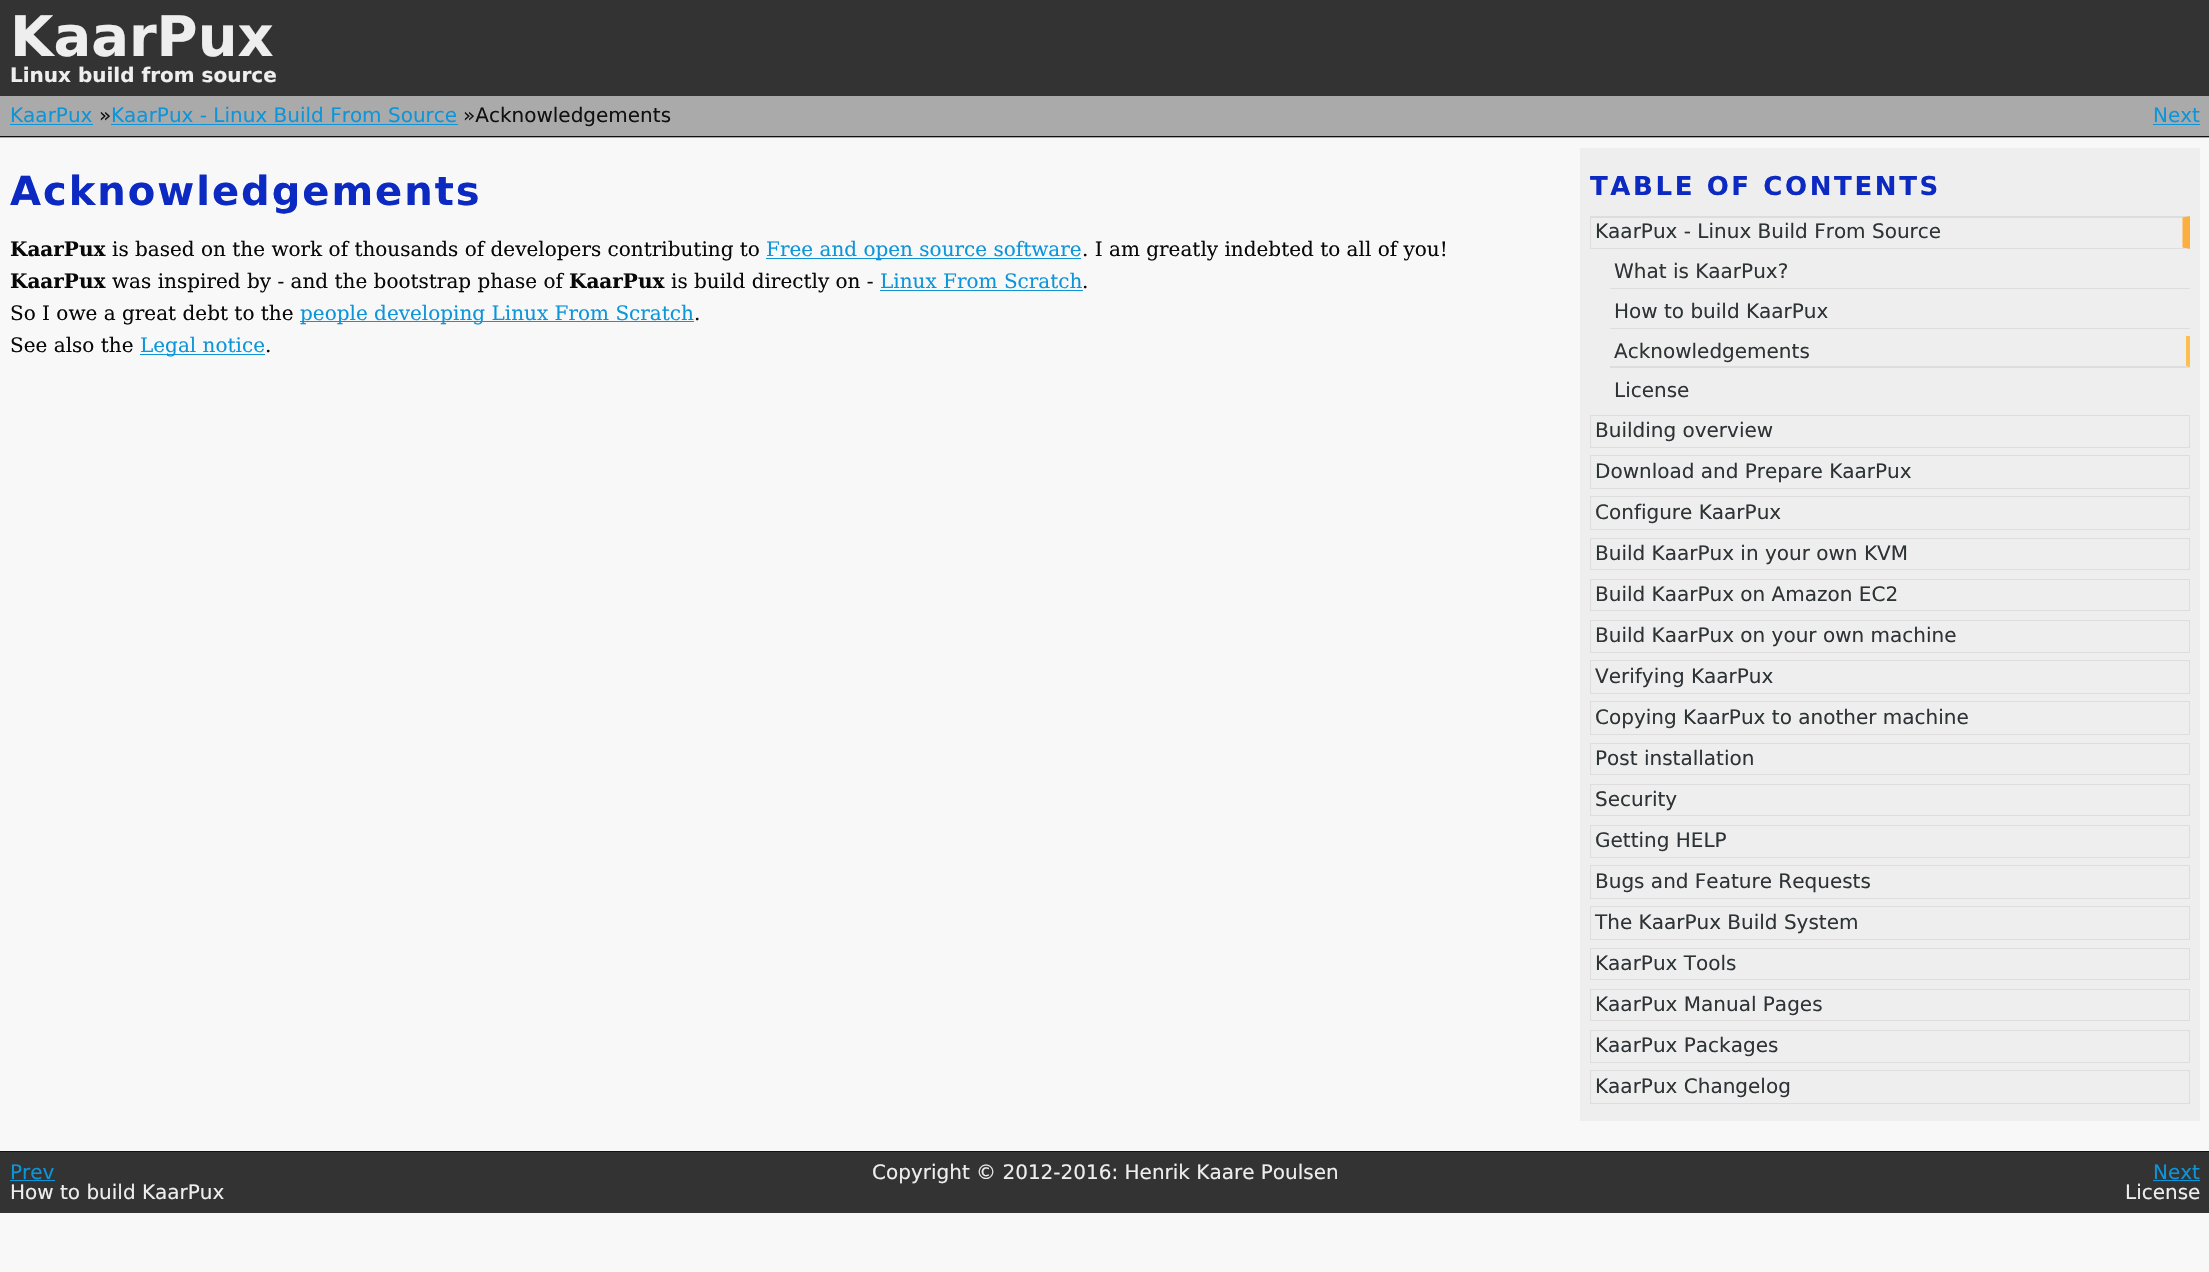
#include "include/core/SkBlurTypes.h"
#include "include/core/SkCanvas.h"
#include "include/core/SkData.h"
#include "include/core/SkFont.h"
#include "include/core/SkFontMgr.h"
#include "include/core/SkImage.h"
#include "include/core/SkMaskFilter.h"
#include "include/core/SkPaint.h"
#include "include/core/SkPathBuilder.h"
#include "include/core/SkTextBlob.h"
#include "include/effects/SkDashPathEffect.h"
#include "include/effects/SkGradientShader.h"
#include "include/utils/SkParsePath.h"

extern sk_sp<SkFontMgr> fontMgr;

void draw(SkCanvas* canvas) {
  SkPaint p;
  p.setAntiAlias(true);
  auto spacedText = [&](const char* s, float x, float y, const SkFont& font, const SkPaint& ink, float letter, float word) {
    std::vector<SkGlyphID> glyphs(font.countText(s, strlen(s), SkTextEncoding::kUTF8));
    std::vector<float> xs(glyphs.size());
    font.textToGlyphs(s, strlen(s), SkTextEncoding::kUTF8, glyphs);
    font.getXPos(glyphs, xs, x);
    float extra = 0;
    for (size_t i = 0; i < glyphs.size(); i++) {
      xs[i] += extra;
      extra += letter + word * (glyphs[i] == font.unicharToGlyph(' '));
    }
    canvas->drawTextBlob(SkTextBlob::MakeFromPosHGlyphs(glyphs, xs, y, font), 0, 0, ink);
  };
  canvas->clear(SkColorSetRGB(248, 248, 248));
  p.setColor(SkColorSetRGB(51, 51, 51));
  canvas->drawRect(SkRect::MakeLTRB(0, 0, 2209, 96), p);
  p.setColor(SkColorSetRGB(170, 170, 170));
  canvas->drawRect(SkRect::MakeLTRB(0, 96, 2209, 138), p);
  p.setColor(SkColorSetRGB(17, 17, 17));
  canvas->drawRect(SkRect::MakeLTRB(0, 136, 2209, 137), p);
  p.setColor(SkColorSetRGB(13, 149, 218));
  canvas->drawRect(SkRect::MakeLTRB(10, 124, 93, 125), p);
  canvas->drawRect(SkRect::MakeLTRB(111, 124, 458, 125), p);
  canvas->drawRect(SkRect::MakeLTRB(2153, 124, 2200, 125), p);
  canvas->drawRect(SkRect::MakeLTRB(766, 258, 1081, 259), p);
  canvas->drawRect(SkRect::MakeLTRB(880, 290, 1083, 291), p);
  canvas->drawRect(SkRect::MakeLTRB(300, 321, 694, 322), p);
  canvas->drawRect(SkRect::MakeLTRB(140, 354, 265, 355), p);
  p.setColor(SkColorSetRGB(238, 238, 238));
  canvas->drawRect(SkRect::MakeLTRB(1580, 148, 2200, 1121), p);
  p.setColor(SkColorSetRGB(221, 221, 221));
  canvas->drawPath(SkPathBuilder().moveTo(1590, 216).lineTo(2190, 216).lineTo(2182, 218).lineTo(1591, 218).close().detach(), p);
  p.setColor(SkColorSetRGB(252, 175, 62));
  canvas->drawPath(SkPathBuilder().moveTo(2190, 216).lineTo(2190, 249).lineTo(2182.5f, 247.5f).lineTo(2182.5f, 217.5f).close().detach(), p);
  p.setColor(SkColorSetRGB(221, 221, 221));
  canvas->drawPath(SkPathBuilder().moveTo(2190, 249).lineTo(1590, 249).lineTo(1591, 248).lineTo(2182, 248).close().detach(), p);
  canvas->drawRect(SkRect::MakeLTRB(1590, 216, 1591, 249), p);
  canvas->drawRect(SkRect::MakeLTRB(1610, 288, 2190, 289), p);
  canvas->drawRect(SkRect::MakeLTRB(1610, 328, 2190, 329), p);
  p.setColor(SkColorSetRGB(254, 191, 78));
  canvas->drawPath(SkPathBuilder().moveTo(2190, 336).lineTo(2190, 367.5f).lineTo(2186, 366).lineTo(2186, 336).close().detach(), p);
  p.setColor(SkColorSetRGB(221, 221, 221));
  canvas->drawPath(SkPathBuilder().moveTo(2190, 368).lineTo(1610, 368).lineTo(1610, 366).lineTo(2186, 366).close().detach(), p);
  p.setStyle(SkPaint::kStroke_Style);
  p.setStrokeWidth(1);
  canvas->drawRect(SkRect::MakeLTRB(1590.5f, 415.5f, 2189.5f, 447.5f), p);
  canvas->drawRect(SkRect::MakeLTRB(1590.5f, 455.5f, 2189.5f, 488.5f), p);
  canvas->drawRect(SkRect::MakeLTRB(1590.5f, 496.5f, 2189.5f, 529.5f), p);
  canvas->drawRect(SkRect::MakeLTRB(1590.5f, 538.5f, 2189.5f, 569.5f), p);
  canvas->drawRect(SkRect::MakeLTRB(1590.5f, 579.5f, 2189.5f, 610.5f), p);
  canvas->drawRect(SkRect::MakeLTRB(1590.5f, 620.5f, 2189.5f, 652.5f), p);
  canvas->drawRect(SkRect::MakeLTRB(1590.5f, 660.5f, 2189.5f, 693.5f), p);
  canvas->drawRect(SkRect::MakeLTRB(1590.5f, 701.5f, 2189.5f, 734.5f), p);
  canvas->drawRect(SkRect::MakeLTRB(1590.5f, 743.5f, 2189.5f, 774.5f), p);
  canvas->drawRect(SkRect::MakeLTRB(1590.5f, 784.5f, 2189.5f, 815.5f), p);
  canvas->drawRect(SkRect::MakeLTRB(1590.5f, 825.5f, 2189.5f, 857.5f), p);
  canvas->drawRect(SkRect::MakeLTRB(1590.5f, 865.5f, 2189.5f, 898.5f), p);
  canvas->drawRect(SkRect::MakeLTRB(1590.5f, 906.5f, 2189.5f, 939.5f), p);
  canvas->drawRect(SkRect::MakeLTRB(1590.5f, 948.5f, 2189.5f, 979.5f), p);
  canvas->drawRect(SkRect::MakeLTRB(1590.5f, 989.5f, 2189.5f, 1020.5f), p);
  canvas->drawRect(SkRect::MakeLTRB(1590.5f, 1030.5f, 2189.5f, 1062.5f), p);
  canvas->drawRect(SkRect::MakeLTRB(1590.5f, 1070.5f, 2189.5f, 1103.5f), p);
  p.setStyle(SkPaint::kFill_Style);
  p.setColor(SkColorSetRGB(51, 51, 51));
  canvas->drawRect(SkRect::MakeLTRB(0, 1152, 2209, 1213), p);
  p.setColor(SkColorSetRGB(17, 17, 17));
  canvas->drawRect(SkRect::MakeLTRB(0, 1151, 2209, 1152), p);
  p.setColor(SkColorSetRGB(13, 149, 218));
  canvas->drawRect(SkRect::MakeLTRB(10, 1180, 55, 1181), p);
  canvas->drawRect(SkRect::MakeLTRB(2153, 1180, 2200, 1181), p);
  SkFont font1(fontMgr->matchFamilyStyle("DejaVu Sans", SkFontStyle::Bold()), 56);
  font1.setSubpixel(true);
  p.setColor(SkColorSetRGB(238, 238, 238));
  canvas->drawString("KaarPux", 10, 56, font1, p);
  SkFont font2(fontMgr->matchFamilyStyle("DejaVu Sans", SkFontStyle::Bold()), 20);
  font2.setSubpixel(true);
  canvas->drawString("Linux build from source", 10, 82, font2, p);
  SkFont font3(fontMgr->matchFamilyStyle("DejaVu Sans", SkFontStyle::Normal()), 20);
  font3.setSubpixel(true);
  p.setColor(SkColorSetRGB(13, 149, 218));
  canvas->drawString("KaarPux", 10, 122, font3, p);
  p.setColor(SkColorSetRGB(17, 17, 17));
  canvas->drawString("»", 99, 122, font3, p);
  p.setColor(SkColorSetRGB(13, 149, 218));
  canvas->drawString("KaarPux - Linux Build From Source", 111, 122, font3, p);
  p.setColor(SkColorSetRGB(17, 17, 17));
  canvas->drawString("»Acknowledgements", 463, 122, font3, p);
  p.setColor(SkColorSetRGB(13, 149, 218));
  canvas->drawString("Next", 2153, 122, font3, p);
  SkFont font4(fontMgr->matchFamilyStyle("DejaVu Sans", SkFontStyle::Bold()), 40);
  font4.setSubpixel(true);
  p.setColor(SkColorSetRGB(12, 41, 194));
  spacedText("Acknowledgements", 10, 205, font4, p, 2, 0);
  SkFont font5(fontMgr->matchFamilyStyle("DejaVu Serif", SkFontStyle::Bold()), 20);
  font5.setSubpixel(true);
  p.setColor(SkColorSetRGB(8, 8, 8));
  canvas->drawString("KaarPux", 10, 256, font5, p);
  SkFont font6(fontMgr->matchFamilyStyle("DejaVu Serif", SkFontStyle::Normal()), 20);
  font6.setSubpixel(true);
  canvas->drawString("is based on the work of thousands of developers contributing to", 112, 256, font6, p);
  p.setColor(SkColorSetRGB(13, 149, 218));
  canvas->drawString("Free and open source software", 766, 256, font6, p);
  p.setColor(SkColorSetRGB(8, 8, 8));
  canvas->drawString(". I am greatly indebted to all of you!", 1082, 256, font6, p);
  canvas->drawString("KaarPux", 10, 288, font5, p);
  canvas->drawString("was inspired by - and the bootstrap phase of", 112, 288, font6, p);
  canvas->drawString("KaarPux", 569, 288, font5, p);
  canvas->drawString("is build directly on -", 671, 288, font6, p);
  p.setColor(SkColorSetRGB(13, 149, 218));
  canvas->drawString("Linux From Scratch", 880, 288, font6, p);
  p.setColor(SkColorSetRGB(8, 8, 8));
  canvas->drawString(".", 1082, 288, font6, p);
  canvas->drawString("So I owe a great debt to the", 10, 320, font6, p);
  p.setColor(SkColorSetRGB(13, 149, 218));
  canvas->drawString("people developing Linux From Scratch", 300, 320, font6, p);
  p.setColor(SkColorSetRGB(8, 8, 8));
  canvas->drawString(".", 694, 320, font6, p);
  canvas->drawString("See also the", 10, 352, font6, p);
  p.setColor(SkColorSetRGB(13, 149, 218));
  canvas->drawString("Legal notice", 140, 352, font6, p);
  p.setColor(SkColorSetRGB(8, 8, 8));
  canvas->drawString(".", 265, 352, font6, p);
  SkFont font7(fontMgr->matchFamilyStyle("DejaVu Sans", SkFontStyle::Bold()), 26);
  font7.setSubpixel(true);
  p.setColor(SkColorSetRGB(12, 41, 194));
  spacedText("TABLE OF CONTENTS", 1590, 195, font7, p, 2.6f, 0);
  p.setColor(SkColorSetRGB(46, 52, 54));
  canvas->drawString("KaarPux - Linux Build From Source", 1595, 238, font3, p);
  canvas->drawString("What is KaarPux?", 1614, 278, font3, p);
  canvas->drawString("How to build KaarPux", 1614, 318, font3, p);
  canvas->drawString("Acknowledgements", 1614, 358, font3, p);
  canvas->drawString("License", 1614, 397, font3, p);
  canvas->drawString("Building overview", 1595, 437, font3, p);
  canvas->drawString("Download and Prepare KaarPux", 1595, 478, font3, p);
  canvas->drawString("Configure KaarPux", 1595, 519, font3, p);
  canvas->drawString("Build KaarPux in your own KVM", 1595, 560, font3, p);
  canvas->drawString("Build KaarPux on Amazon EC2", 1595, 601, font3, p);
  canvas->drawString("Build KaarPux on your own machine", 1595, 642, font3, p);
  canvas->drawString("Verifying KaarPux", 1595, 683, font3, p);
  canvas->drawString("Copying KaarPux to another machine", 1595, 724, font3, p);
  canvas->drawString("Post installation", 1595, 765, font3, p);
  canvas->drawString("Security", 1595, 806, font3, p);
  canvas->drawString("Getting HELP", 1595, 847, font3, p);
  canvas->drawString("Bugs and Feature Requests", 1595, 888, font3, p);
  canvas->drawString("The KaarPux Build System", 1595, 929, font3, p);
  canvas->drawString("KaarPux Tools", 1595, 970, font3, p);
  canvas->drawString("KaarPux Manual Pages", 1595, 1011, font3, p);
  canvas->drawString("KaarPux Packages", 1595, 1052, font3, p);
  canvas->drawString("KaarPux Changelog", 1595, 1093, font3, p);
  p.setColor(SkColorSetRGB(13, 149, 218));
  canvas->drawString("Prev", 10, 1179, font3, p);
  p.setColor(SkColorSetRGB(238, 238, 238));
  canvas->drawString("How to build KaarPux", 10, 1199, font3, p);
  canvas->drawString("Copyright © 2012-2016: Henrik Kaare Poulsen", 872, 1179, font3, p);
  p.setColor(SkColorSetRGB(13, 149, 218));
  canvas->drawString("Next", 2153, 1179, font3, p);
  p.setColor(SkColorSetRGB(238, 238, 238));
  canvas->drawString("License", 2125, 1199, font3, p);
}
